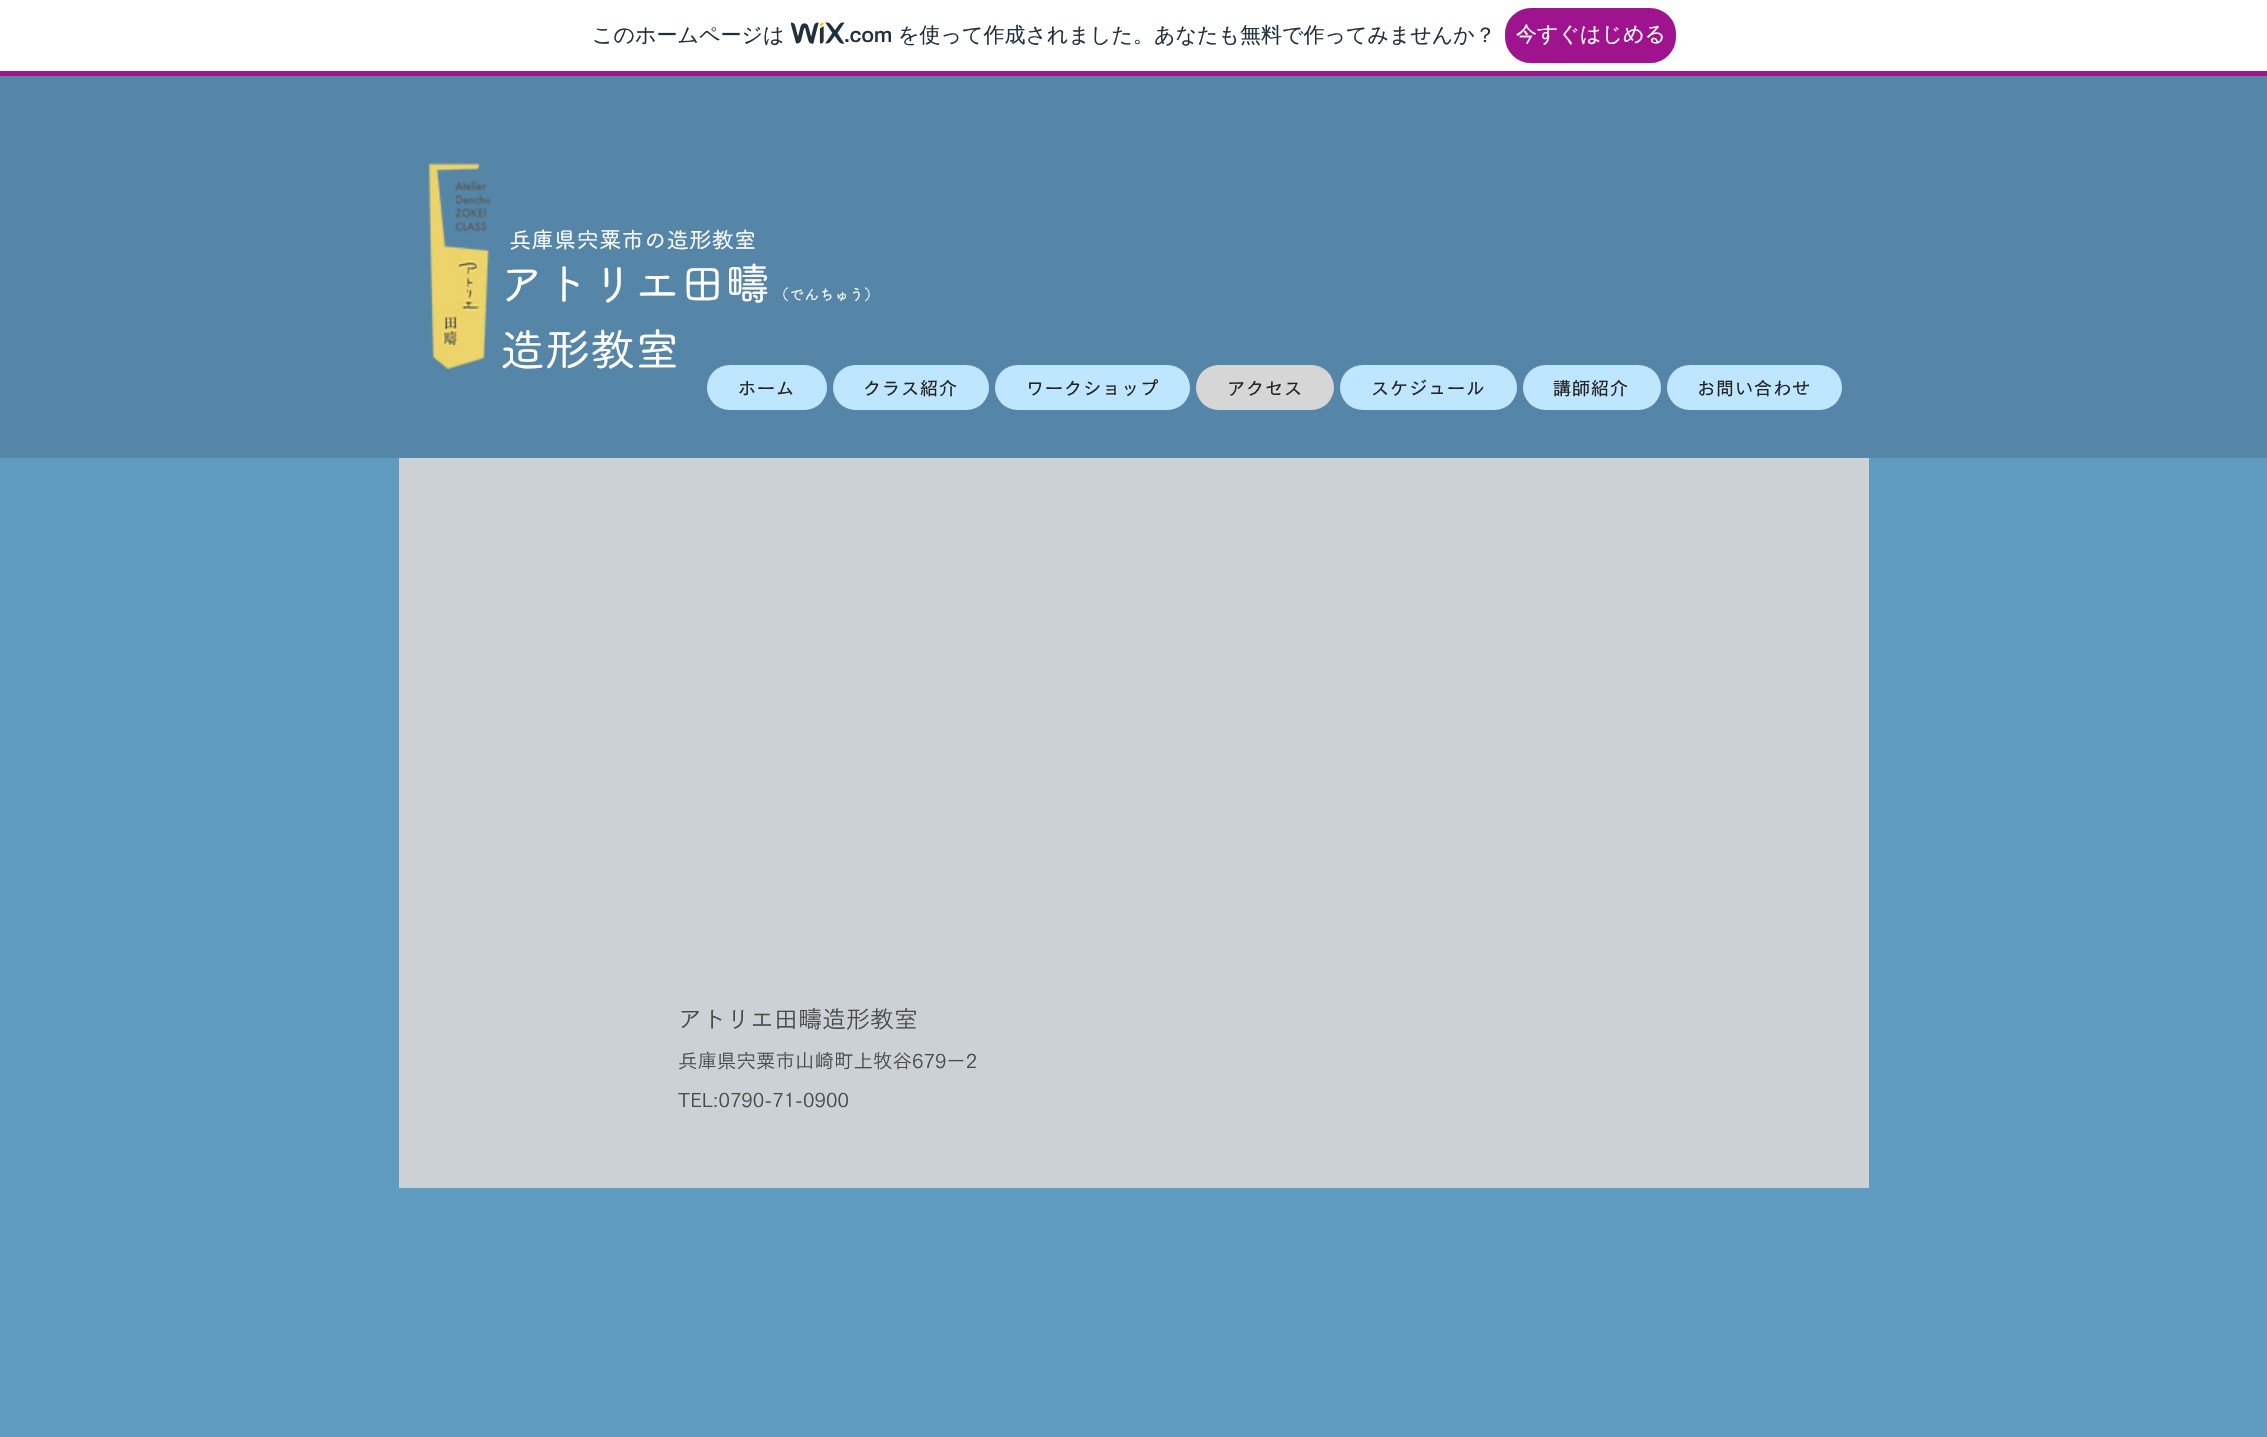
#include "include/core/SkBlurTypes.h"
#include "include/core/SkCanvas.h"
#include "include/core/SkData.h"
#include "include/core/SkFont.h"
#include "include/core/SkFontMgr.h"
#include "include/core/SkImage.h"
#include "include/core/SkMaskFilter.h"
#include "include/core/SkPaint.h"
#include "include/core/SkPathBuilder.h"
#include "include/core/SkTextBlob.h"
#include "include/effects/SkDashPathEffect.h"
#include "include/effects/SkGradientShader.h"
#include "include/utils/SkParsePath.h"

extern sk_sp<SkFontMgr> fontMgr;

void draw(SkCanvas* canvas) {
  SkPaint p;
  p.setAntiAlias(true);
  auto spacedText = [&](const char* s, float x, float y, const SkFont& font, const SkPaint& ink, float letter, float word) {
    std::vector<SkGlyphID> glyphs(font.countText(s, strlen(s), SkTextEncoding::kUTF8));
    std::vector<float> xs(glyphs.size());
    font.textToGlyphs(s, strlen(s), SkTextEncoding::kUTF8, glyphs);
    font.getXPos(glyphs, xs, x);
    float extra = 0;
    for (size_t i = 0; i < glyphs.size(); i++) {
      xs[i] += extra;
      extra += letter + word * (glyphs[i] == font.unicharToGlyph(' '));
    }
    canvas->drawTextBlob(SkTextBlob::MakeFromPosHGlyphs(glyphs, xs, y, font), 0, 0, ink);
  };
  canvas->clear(SK_ColorWHITE);
  p.setColor(SkColorSetRGB(160, 19, 142));
  canvas->drawRect(SkRect::MakeLTRB(0, 71, 2267, 76), p);
  canvas->drawImageRect(SkImages::DeferredFromEncodedData(SkData::MakeFromFileName("images/1.png")), SkRect::MakeLTRB(791, 22, 845, 44), SkSamplingOptions());
  canvas->drawRoundRect(SkRect::MakeLTRB(1506, 9, 1675, 62), 25, 25, p);
  p.setStyle(SkPaint::kStroke_Style);
  p.setStrokeWidth(2);
  canvas->drawRoundRect(SkRect::MakeLTRB(1506, 9, 1675, 62), 25, 25, p);
  p.setStyle(SkPaint::kFill_Style);
  p.setColor(SkColorSetRGB(86, 134, 167));
  canvas->drawRect(SkRect::MakeLTRB(0, 76, 2267, 458), p);
  canvas->drawImageRect(SkImages::DeferredFromEncodedData(SkData::MakeFromFileName("images/2.png")), SkRect::MakeLTRB(428, 163, 491, 369), SkSamplingOptions());
  p.setColor(SkColorSetRGB(191, 230, 255));
  canvas->drawRoundRect(SkRect::MakeLTRB(707, 365, 827, 410), 22.5f, 22.5f, p);
  canvas->drawRoundRect(SkRect::MakeLTRB(833, 365, 989, 410), 22.5f, 22.5f, p);
  canvas->drawRoundRect(SkRect::MakeLTRB(995, 365, 1190, 410), 22.5f, 22.5f, p);
  p.setColor(SkColorSetRGB(214, 214, 214));
  canvas->drawRoundRect(SkRect::MakeLTRB(1196, 365, 1334, 410), 22.5f, 22.5f, p);
  p.setColor(SkColorSetRGB(191, 230, 255));
  canvas->drawRoundRect(SkRect::MakeLTRB(1340, 365, 1517, 410), 22.5f, 22.5f, p);
  canvas->drawRoundRect(SkRect::MakeLTRB(1523, 365, 1661, 410), 22.5f, 22.5f, p);
  canvas->drawRoundRect(SkRect::MakeLTRB(1667, 365, 1842, 410), 22.5f, 22.5f, p);
  p.setColor(SkColorSetRGB(95, 154, 191));
  canvas->drawRect(SkRect::MakeLTRB(0, 458, 2267, 1437), p);
  p.setColor(SkColorSetRGB(203, 209, 212));
  canvas->drawRect(SkRect::MakeLTRB(399, 458, 1869, 1188), p);
  SkFont font1(fontMgr->matchFamilyStyle("WenQuanYi Zen Hei", SkFontStyle(500, SkFontStyle::kNormal_Width, SkFontStyle::kUpright_Slant)), 21);
  font1.setSubpixel(true);
  p.setColor(SkColorSetRGB(32, 48, 60));
  canvas->drawString("このホームページは", 592, 42, font1, p);
  SkFont font2(fontMgr->matchFamilyStyle("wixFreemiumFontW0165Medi", SkFontStyle(500, SkFontStyle::kNormal_Width, SkFontStyle::kUpright_Slant)), 21);
  font2.setSubpixel(true);
  canvas->drawString(".com", 844, 42, font2, p);
  canvas->drawString("を使って作成されました。あなたも無料で作ってみませんか？", 898, 42, font1, p);
  p.setColor(SK_ColorWHITE);
  canvas->drawString("今すぐはじめる", 1516, 41, font1, p);
  SkFont font3(fontMgr->matchFamilyStyle("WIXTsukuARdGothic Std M", SkFontStyle(500, SkFontStyle::kNormal_Width, SkFontStyle::kUpright_Slant)), 22.5f);
  font3.setSubpixel(true);
  canvas->drawString("兵庫県宍粟市の造形教室", 509, 248, font3, p);
  SkFont font4(fontMgr->matchFamilyStyle("WIXTsukuARdGothic Std M", SkFontStyle(500, SkFontStyle::kNormal_Width, SkFontStyle::kUpright_Slant)), 45);
  font4.setSubpixel(true);
  canvas->drawString("アトリエ田疇", 500, 300, font4, p);
  SkFont font5(fontMgr->matchFamilyStyle("WIXTsukuARdGothic Std M", SkFontStyle(500, SkFontStyle::kNormal_Width, SkFontStyle::kUpright_Slant)), 15);
  font5.setSubpixel(true);
  canvas->drawString("（でんちゅう）", 774, 300, font5, p);
  canvas->drawString("造形教室", 500, 366, font4, p);
  SkFont font6(fontMgr->matchFamilyStyle("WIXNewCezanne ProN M", SkFontStyle(500, SkFontStyle::kNormal_Width, SkFontStyle::kUpright_Slant)), 18);
  font6.setSubpixel(true);
  p.setColor(SkColorSetRGB(36, 35, 35));
  spacedText("ホーム", 738, 395, font6, p, 1, 0);
  spacedText("クラス紹介", 863, 395, font6, p, 1, 0);
  spacedText("ワークショップ", 1026, 395, font6, p, 1, 0);
  spacedText("アクセス", 1227, 395, font6, p, 1, 0);
  spacedText("スケジュール", 1371, 395, font6, p, 1, 0);
  spacedText("講師紹介", 1553, 395, font6, p, 1, 0);
  spacedText("お問い合わせ", 1697, 395, font6, p, 1, 0);
  SkFont font7(fontMgr->matchFamilyStyle("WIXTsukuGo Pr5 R", SkFontStyle::Normal()), 24);
  font7.setSubpixel(true);
  p.setColor(SkColorSetRGB(74, 74, 74));
  canvas->drawString("アトリエ田疇造形教室", 678, 1028, font7, p);
  SkFont font8(fontMgr->matchFamilyStyle("WIXTsukuGo Pr5 R", SkFontStyle::Normal()), 19.5f);
  font8.setSubpixel(true);
  canvas->drawString("兵庫県宍粟市山崎町上牧谷679ー2", 678, 1068, font8, p);
  canvas->drawString("TEL:0790-71-0900", 678, 1107, font8, p);
}
